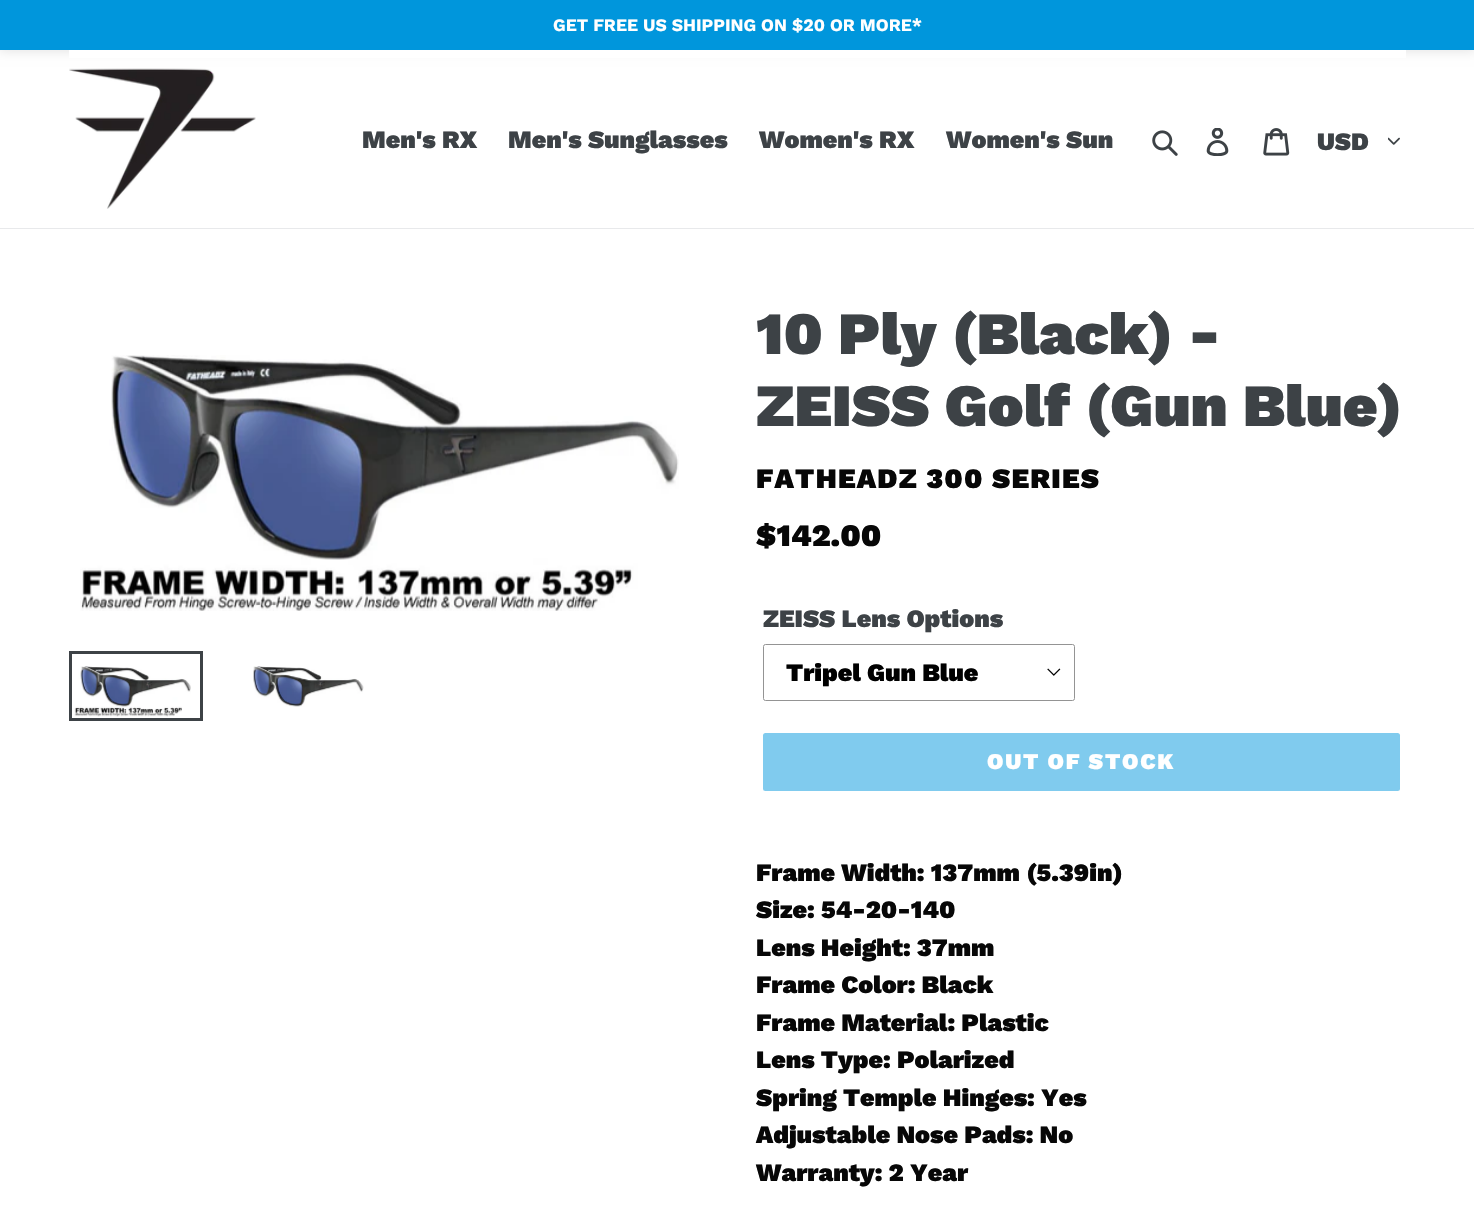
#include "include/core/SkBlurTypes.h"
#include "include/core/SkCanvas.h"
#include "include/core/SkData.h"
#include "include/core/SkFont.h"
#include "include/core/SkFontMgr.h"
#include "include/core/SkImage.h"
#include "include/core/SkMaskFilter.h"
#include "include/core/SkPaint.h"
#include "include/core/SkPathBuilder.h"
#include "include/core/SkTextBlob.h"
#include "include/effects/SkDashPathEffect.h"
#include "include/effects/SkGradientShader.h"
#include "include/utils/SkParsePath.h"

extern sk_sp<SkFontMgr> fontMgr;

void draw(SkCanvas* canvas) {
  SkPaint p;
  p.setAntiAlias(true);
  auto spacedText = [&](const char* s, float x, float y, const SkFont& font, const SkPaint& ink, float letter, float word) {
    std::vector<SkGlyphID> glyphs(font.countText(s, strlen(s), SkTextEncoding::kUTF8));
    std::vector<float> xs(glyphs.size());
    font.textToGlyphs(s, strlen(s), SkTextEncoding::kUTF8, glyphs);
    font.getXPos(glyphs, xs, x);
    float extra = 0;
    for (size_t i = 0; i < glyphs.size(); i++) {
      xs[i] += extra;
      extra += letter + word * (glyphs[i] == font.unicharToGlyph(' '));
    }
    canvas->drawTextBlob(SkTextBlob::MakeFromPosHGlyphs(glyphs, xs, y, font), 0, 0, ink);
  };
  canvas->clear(SK_ColorWHITE);
  p.setColor(SkColorSetARGB(28, 0, 0, 0));
  p.setMaskFilter(SkMaskFilter::MakeBlur(kNormal_SkBlurStyle, 5.5f));
  canvas->drawRect(SkRect::MakeLTRB(-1, -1, 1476, 51), p);
  p.setMaskFilter(nullptr);
  p.setColor(SkColorSetRGB(0, 150, 220));
  canvas->drawRect(SkRect::MakeLTRB(0, 0, 1474, 50), p);
  p.setColor(SkColorSetRGB(232, 233, 235));
  canvas->drawRect(SkRect::MakeLTRB(0, 228, 1474, 229), p);
  p.setColor(SK_ColorWHITE);
  canvas->drawRect(SkRect::MakeLTRB(69, 50, 1406, 58), p);
  canvas->drawImageRect(SkImages::DeferredFromEncodedData(SkData::MakeFromFileName("images/1.png")), SkRect::MakeLTRB(69, 68, 256, 209), SkSamplingOptions());
  canvas->drawImageRect(SkImages::DeferredFromEncodedData(SkData::MakeFromFileName("images/2.png")), SkRect::MakeLTRB(1152, 130, 1178, 156), SkSamplingOptions());
  canvas->drawImageRect(SkImages::DeferredFromEncodedData(SkData::MakeFromFileName("images/3.png")), SkRect::MakeLTRB(1206, 128, 1229, 156), SkSamplingOptions());
  canvas->drawImageRect(SkImages::DeferredFromEncodedData(SkData::MakeFromFileName("images/4.png")), SkRect::MakeLTRB(1263, 128, 1290, 156), SkSamplingOptions());
  canvas->drawImageRect(SkImages::DeferredFromEncodedData(SkData::MakeFromFileName("images/5.png")), SkRect::MakeLTRB(1388, 137, 1400, 145), SkSamplingOptions());
  canvas->drawImageRect(SkImages::DeferredFromEncodedData(SkData::MakeFromFileName("images/6.png")), SkRect::MakeLTRB(80, 355, 679, 611), SkSamplingOptions());
  p.setStyle(SkPaint::kStroke_Style);
  p.setStrokeWidth(3);
  p.setColor(SkColorSetRGB(61, 66, 70));
  canvas->drawRect(SkRect::MakeLTRB(70.5f, 652.5f, 201.5f, 719.5f), p);
  canvas->drawImageRect(SkImages::DeferredFromEncodedData(SkData::MakeFromFileName("images/7.png")), SkRect::MakeLTRB(74, 666, 191, 717), SkSamplingOptions());
  canvas->drawImageRect(SkImages::DeferredFromEncodedData(SkData::MakeFromFileName("images/8.png")), SkRect::MakeLTRB(253, 666, 364, 707), SkSamplingOptions());
  canvas->drawImageRect(SkImages::DeferredFromEncodedData(SkData::MakeFromFileName("images/9.png")), SkRect::MakeLTRB(1047, 668, 1061, 676), SkSamplingOptions());
  p.setStrokeWidth(1);
  p.setColor(SkColorSetRGB(148, 148, 148));
  canvas->drawRoundRect(SkRect::MakeLTRB(763.5f, 644.5f, 1074.5f, 700.5f), 2, 2, p);
  p.setStyle(SkPaint::kFill_Style);
  p.setColor(SkColorSetRGB(128, 203, 238));
  canvas->drawRoundRect(SkRect::MakeLTRB(763, 733, 1400, 791), 2.5f, 2.5f, p);
  SkFont font1(fontMgr->matchFamilyStyle("Work Sans", SkFontStyle::Bold()), 17.5f);
  font1.setSubpixel(true);
  p.setColor(SK_ColorWHITE);
  canvas->drawString("GET FREE US SHIPPING ON $20 OR MORE*", 553, 31, font1, p);
  SkFont font2(fontMgr->matchFamilyStyle("Work Sans", SkFontStyle(900, SkFontStyle::kNormal_Width, SkFontStyle::kUpright_Slant)), 25);
  font2.setSubpixel(true);
  p.setColor(SkColorSetRGB(61, 66, 70));
  canvas->drawString("Men's RX", 362, 148, font2, p);
  canvas->drawString("Men's Sunglasses", 508, 148, font2, p);
  canvas->drawString("Women's RX", 759, 148, font2, p);
  canvas->drawString("Women's Sun", 946, 148, font2, p);
  canvas->drawString("USD", 1317, 150, font2, p);
  SkFont font3(fontMgr->matchFamilyStyle("Work Sans", SkFontStyle(900, SkFontStyle::kNormal_Width, SkFontStyle::kUpright_Slant)), 60);
  font3.setSubpixel(true);
  canvas->drawString("10 Ply (Black) -", 756, 354, font3, p);
  canvas->drawString("ZEISS Golf (Gun Blue)", 756, 426, font3, p);
  SkFont font4(fontMgr->matchFamilyStyle("Work Sans", SkFontStyle(900, SkFontStyle::kNormal_Width, SkFontStyle::kUpright_Slant)), 28.1f);
  font4.setSubpixel(true);
  p.setColor(SkColorSetRGB(7, 7, 7));
  spacedText("FATHEADZ 300 SERIES", 756, 488, font4, p, 1.25f, 0);
  SkFont font5(fontMgr->matchFamilyStyle("Work Sans", SkFontStyle(900, SkFontStyle::kNormal_Width, SkFontStyle::kUpright_Slant)), 31.25f);
  font5.setSubpixel(true);
  canvas->drawString("$142.00", 756, 546, font5, p);
  p.setColor(SkColorSetRGB(61, 66, 70));
  canvas->drawString("ZEISS Lens Options", 763, 627, font2, p);
  p.setColor(SK_ColorBLACK);
  canvas->drawString("Tripel Gun Blue", 786, 681, font2, p);
  SkFont font6(fontMgr->matchFamilyStyle("Work Sans", SkFontStyle(900, SkFontStyle::kNormal_Width, SkFontStyle::kUpright_Slant)), 22.5f);
  font6.setSubpixel(true);
  p.setColor(SK_ColorWHITE);
  spacedText("OUT OF STOCK", 987, 769, font6, p, 1.75f, 0);
  p.setColor(SkColorSetRGB(7, 7, 7));
  canvas->drawString("Frame Width: 137mm (5.39in)", 756, 881, font2, p);
  canvas->drawString("Size: 54-20-140", 756, 918, font2, p);
  canvas->drawString("Lens Height: 37mm", 756, 956, font2, p);
  canvas->drawString("Frame Color: Black", 756, 993, font2, p);
  canvas->drawString("Frame Material: Plastic", 756, 1031, font2, p);
  canvas->drawString("Lens Type: Polarized", 756, 1068, font2, p);
  canvas->drawString("Spring Temple Hinges: Yes", 756, 1106, font2, p);
  canvas->drawString("Adjustable Nose Pads: No", 756, 1143, font2, p);
  canvas->drawString("Warranty: 2 Year", 756, 1181, font2, p);
}
